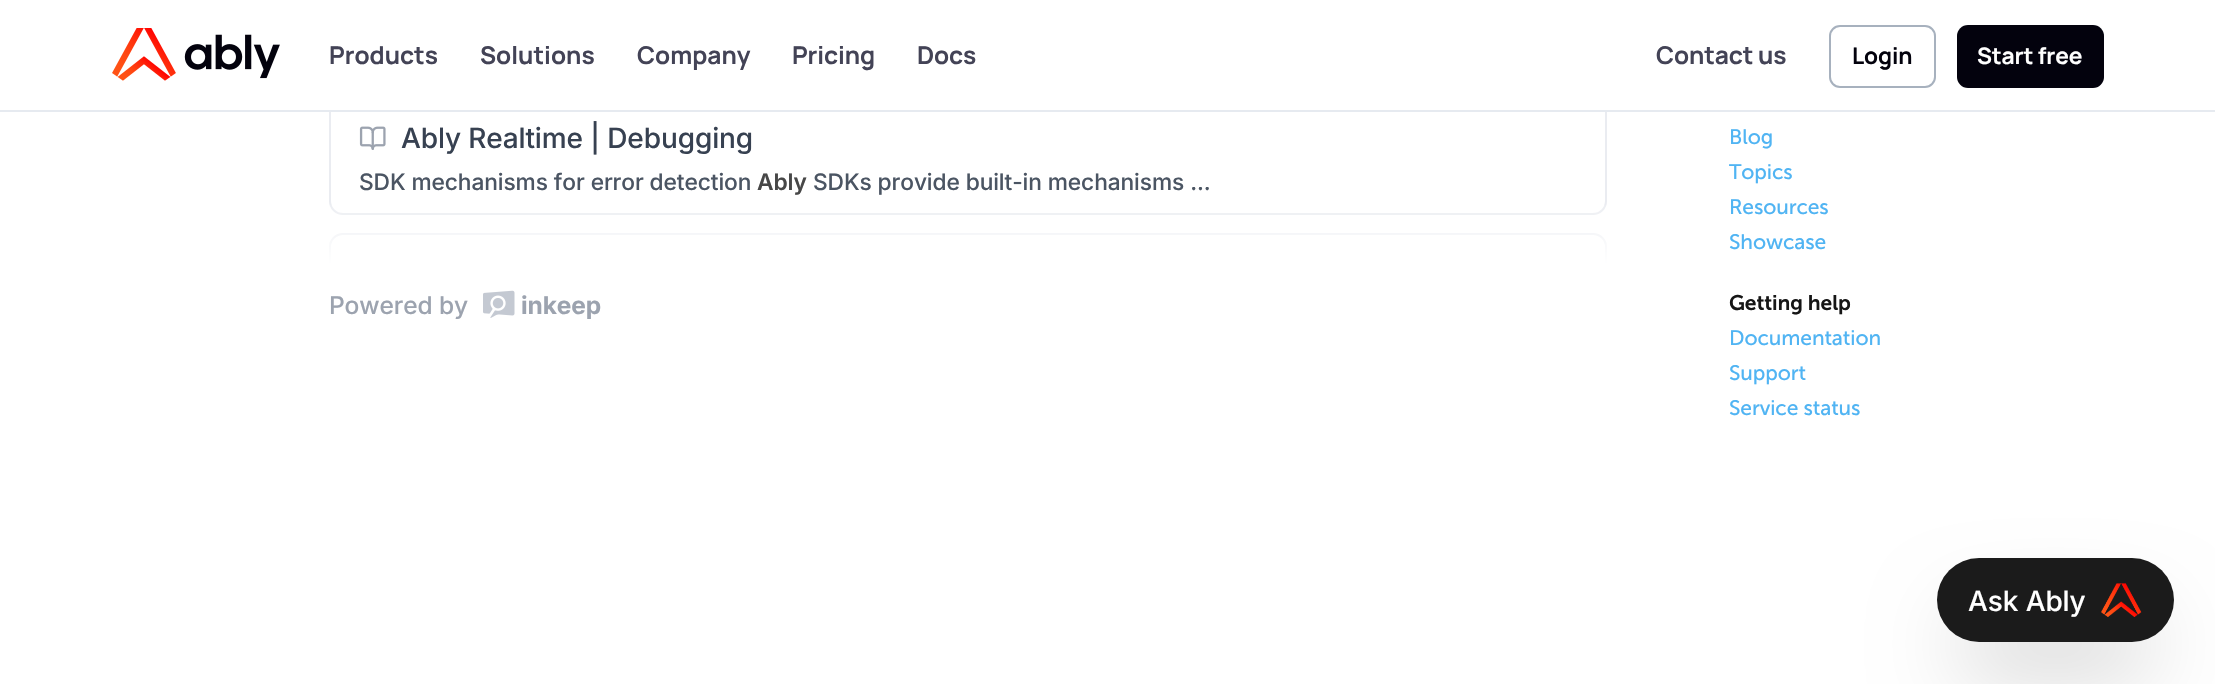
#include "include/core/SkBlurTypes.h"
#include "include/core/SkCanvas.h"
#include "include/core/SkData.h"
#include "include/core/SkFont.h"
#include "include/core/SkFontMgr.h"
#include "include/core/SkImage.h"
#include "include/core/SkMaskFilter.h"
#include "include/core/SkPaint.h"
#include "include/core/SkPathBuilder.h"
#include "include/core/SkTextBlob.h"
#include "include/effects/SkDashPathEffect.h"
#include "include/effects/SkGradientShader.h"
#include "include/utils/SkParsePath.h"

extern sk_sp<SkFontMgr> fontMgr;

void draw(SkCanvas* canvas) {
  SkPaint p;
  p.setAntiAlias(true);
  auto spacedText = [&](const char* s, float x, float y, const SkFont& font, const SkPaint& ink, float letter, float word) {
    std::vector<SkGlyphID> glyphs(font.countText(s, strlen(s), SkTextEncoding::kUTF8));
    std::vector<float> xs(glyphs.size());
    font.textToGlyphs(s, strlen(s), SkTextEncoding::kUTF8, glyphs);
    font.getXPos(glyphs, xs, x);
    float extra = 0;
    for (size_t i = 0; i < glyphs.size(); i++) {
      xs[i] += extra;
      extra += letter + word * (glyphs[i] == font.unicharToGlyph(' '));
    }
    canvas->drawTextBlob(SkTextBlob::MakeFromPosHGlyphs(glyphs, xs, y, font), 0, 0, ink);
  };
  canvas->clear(SK_ColorWHITE);
  p.setStyle(SkPaint::kStroke_Style);
  p.setStrokeWidth(2);
  p.setColor(SkColorSetRGB(234, 236, 241));
  canvas->drawRoundRect(SkRect::MakeLTRB(330, 64, 1606, 214), 13, 13, p);
  p.setStyle(SkPaint::kFill_Style);
  p.setColor(SK_ColorWHITE);
  canvas->drawRect(SkRect::MakeLTRB(329, 63, 1607, 110), p);
  p.setColor(SkColorSetRGB(230, 234, 240));
  canvas->drawRect(SkRect::MakeLTRB(0, 110, 2215, 112), p);
  canvas->drawImageRect(SkImages::DeferredFromEncodedData(SkData::MakeFromFileName("images/1.png")), SkRect::MakeLTRB(112, 28, 280, 81), SkSamplingOptions());
  p.setStyle(SkPaint::kStroke_Style);
  p.setColor(SkColorSetRGB(167, 177, 190));
  canvas->drawRoundRect(SkRect::MakeLTRB(1830, 26, 1935, 87), 10, 10, p);
  p.setStyle(SkPaint::kFill_Style);
  p.setColor(SkColorSetRGB(3, 2, 13));
  canvas->drawRoundRect(SkRect::MakeLTRB(1957, 25, 2104, 88), 11, 11, p);
  canvas->drawImageRect(SkImages::DeferredFromEncodedData(SkData::MakeFromFileName("images/2.png")), SkRect::MakeLTRB(359, 126, 386, 150), SkSamplingOptions());
  canvas->drawImageRect(SkImages::DeferredFromEncodedData(SkData::MakeFromFileName("images/3.png")), SkRect::MakeLTRB(483, 290, 515, 318), SkSamplingOptions());
  p.setColor(SkColorSetARGB(64, 0, 0, 0));
  p.setMaskFilter(SkMaskFilter::MakeBlur(kNormal_SkBlurStyle, 44));
  canvas->drawRoundRect(SkRect::MakeLTRB(1958, 623, 2153, 665), 21, 21, p);
  p.setMaskFilter(nullptr);
  p.setColor(SkColorSetRGB(27, 27, 27));
  canvas->drawRoundRect(SkRect::MakeLTRB(1937, 558, 2174, 642), 42, 42, p);
  canvas->drawImageRect(SkImages::DeferredFromEncodedData(SkData::MakeFromFileName("images/4.png")), SkRect::MakeLTRB(2101, 583, 2142, 617), SkSamplingOptions());
  SkFont font1(fontMgr->matchFamilyStyle("Manrope", SkFontStyle::Bold()), 24.5f);
  font1.setSubpixel(true);
  p.setColor(SkColorSetRGB(67, 67, 86));
  canvas->drawString("Products", 329, 64, font1, p);
  canvas->drawString("Solutions", 480, 64, font1, p);
  canvas->drawString("Company", 637, 64, font1, p);
  spacedText("Pricing", 792, 64, font1, p, -0.1f, 0);
  spacedText("Docs", 917, 64, font1, p, -0.1f, 0);
  spacedText("Contact us", 1656, 64, font1, p, -0.1f, 0);
  SkFont font2(fontMgr->matchFamilyStyle("Manrope", SkFontStyle::Bold()), 22.75f);
  font2.setSubpixel(true);
  p.setColor(SkColorSetRGB(3, 2, 13));
  spacedText("Login", 1852, 64, font2, p, -0.1f, 0);
  p.setColor(SK_ColorWHITE);
  spacedText("Start free", 1977, 64, font2, p, -0.1f, 0);
  SkFont font3(fontMgr->matchFamilyStyle("Inter", SkFontStyle(500, SkFontStyle::kNormal_Width, SkFontStyle::kUpright_Slant)), 28);
  font3.setSubpixel(true);
  p.setColor(SkColorSetRGB(55, 65, 81));
  spacedText("Ably Realtime | Debugging", 401, 148, font3, p, -0.1f, 0);
  SkFont font4(fontMgr->matchFamilyStyle("Inter", SkFontStyle(500, SkFontStyle::kNormal_Width, SkFontStyle::kUpright_Slant)), 22.75f);
  font4.setSubpixel(true);
  p.setColor(SkColorSetRGB(75, 85, 99));
  spacedText("SDK mechanisms for error detection", 359, 190, font4, p, -0.1f, 0);
  SkFont font5(fontMgr->matchFamilyStyle("Inter", SkFontStyle(600, SkFontStyle::kNormal_Width, SkFontStyle::kUpright_Slant)), 22.75f);
  font5.setSubpixel(true);
  p.setColor(SkColorSetRGB(71, 71, 71));
  spacedText("Ably", 757, 190, font5, p, -0.1f, 0);
  p.setColor(SkColorSetRGB(75, 85, 99));
  spacedText("SDKs provide built-in mechanisms ...", 813, 190, font4, p, -0.1f, 0);
  SkFont font6(fontMgr->matchFamilyStyle("Inter", SkFontStyle(500, SkFontStyle::kNormal_Width, SkFontStyle::kUpright_Slant)), 24.5f);
  font6.setSubpixel(true);
  p.setColor(SkColorSetRGB(156, 163, 175));
  spacedText("Powered by", 329, 314, font6, p, -0.1f, 0);
  canvas->save();
  canvas->clipRect(SkRect::MakeLTRB(294, 0, 1642, 266));
  p.setStyle(SkPaint::kStroke_Style);
  p.setColor(SkColorSetRGB(234, 236, 241));
  canvas->drawRoundRect(SkRect::MakeLTRB(330, 234, 1606, 386), 13, 13, p);
  canvas->restore();
  p.setStyle(SkPaint::kFill_Style);
  {
    const SkColor colors[] = {SK_ColorWHITE, SkColorSetARGB(0, 255, 255, 255)};
    const float stops[] = {0, 1};
    const SkPoint ends[] = {{968, 266}, {968, 196}};
    p.setShader(SkGradientShader::MakeLinear(ends, colors, stops, 2, SkTileMode::kClamp));
    p.setAlpha(255);
  }
  canvas->drawRect(SkRect::MakeLTRB(329, 205, 1607, 266), p);
  SkFont font7(fontMgr->matchFamilyStyle("Inter", SkFontStyle::Bold()), 24.5f);
  font7.setSubpixel(true);
  p.setShader(nullptr);
  p.setColor(SkColorSetRGB(156, 163, 175));
  spacedText("inkeep", 521, 314, font7, p, -0.1f, 0);
  SkFont font8(fontMgr->matchFamilyStyle("Museo Sans", SkFontStyle::Normal()), 21);
  font8.setSubpixel(true);
  p.setColor(SkColorSetRGB(80, 180, 243));
  spacedText("Blog", 1729, 144, font8, p, -0.1f, 0);
  spacedText("Topics", 1729, 179, font8, p, -0.1f, 0);
  spacedText("Resources", 1729, 214, font8, p, -0.1f, 0);
  spacedText("Showcase", 1729, 249, font8, p, -0.1f, 0);
  SkFont font9(fontMgr->matchFamilyStyle("Museo Sans", SkFontStyle(600, SkFontStyle::kNormal_Width, SkFontStyle::kUpright_Slant)), 21);
  font9.setSubpixel(true);
  p.setColor(SkColorSetRGB(22, 22, 22));
  spacedText("Getting help", 1729, 310, font9, p, -0.1f, 0);
  p.setColor(SkColorSetRGB(80, 180, 243));
  spacedText("Documentation", 1729, 345, font8, p, -0.1f, 0);
  spacedText("Support", 1729, 380, font8, p, -0.1f, 0);
  spacedText("Service status", 1729, 415, font8, p, -0.1f, 0);
  p.setColor(SK_ColorWHITE);
  spacedText("Ask Ably", 1968, 611, font3, p, -0.1f, 0);
}
